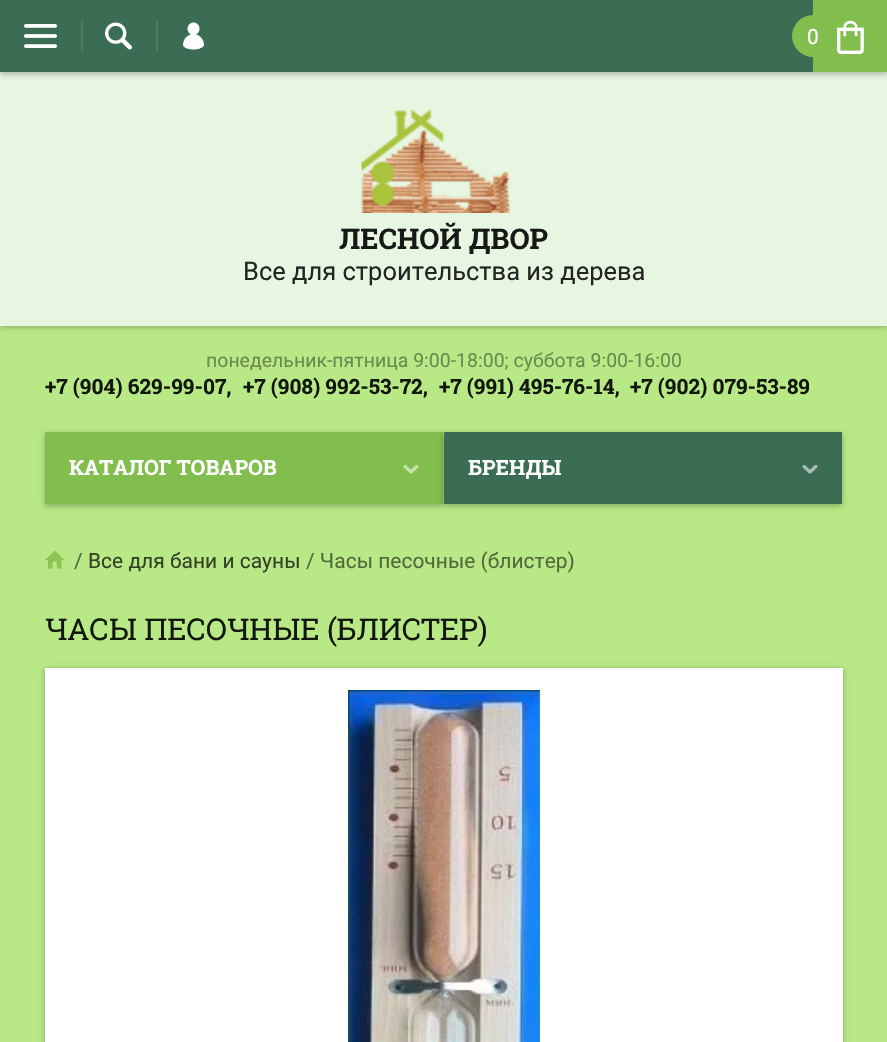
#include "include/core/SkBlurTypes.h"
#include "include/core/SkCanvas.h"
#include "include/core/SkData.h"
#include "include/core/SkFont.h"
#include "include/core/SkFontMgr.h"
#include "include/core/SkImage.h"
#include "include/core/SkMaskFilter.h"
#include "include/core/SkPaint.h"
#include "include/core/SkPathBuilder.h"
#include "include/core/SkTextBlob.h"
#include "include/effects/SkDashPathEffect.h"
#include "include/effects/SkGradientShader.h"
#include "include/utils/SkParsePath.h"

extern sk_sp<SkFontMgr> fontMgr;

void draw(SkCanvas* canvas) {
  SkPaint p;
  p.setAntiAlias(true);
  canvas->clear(SkColorSetRGB(184, 233, 134));
  p.setColor(SkColorSetARGB(71, 0, 0, 0));
  p.setMaskFilter(SkMaskFilter::MakeBlur(kNormal_SkBlurStyle, 3));
  canvas->drawRect(SkRect::MakeLTRB(0, 74, 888, 327), p);
  p.setMaskFilter(nullptr);
  p.setColor(SkColorSetRGB(230, 246, 224));
  canvas->drawRect(SkRect::MakeLTRB(0, 72, 887, 326), p);
  p.setColor(SkColorSetARGB(71, 0, 0, 0));
  p.setMaskFilter(SkMaskFilter::MakeBlur(kNormal_SkBlurStyle, 3));
  canvas->drawRect(SkRect::MakeLTRB(0, 2, 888, 74), p);
  p.setMaskFilter(nullptr);
  p.setColor(SkColorSetRGB(59, 109, 84));
  canvas->drawRect(SkRect::MakeLTRB(0, 0, 813, 72), p);
  canvas->drawImageRect(SkImages::DeferredFromEncodedData(SkData::MakeFromFileName("images/1.png")), SkRect::MakeLTRB(24, 24, 57, 48), SkSamplingOptions());
  p.setColor(SkColorSetRGB(79, 124, 101));
  canvas->drawRect(SkRect::MakeLTRB(81, 21, 83, 51), p);
  canvas->drawImageRect(SkImages::DeferredFromEncodedData(SkData::MakeFromFileName("images/2.png")), SkRect::MakeLTRB(105, 22, 132, 50), SkSamplingOptions());
  canvas->drawRect(SkRect::MakeLTRB(156, 21, 158, 51), p);
  canvas->drawImageRect(SkImages::DeferredFromEncodedData(SkData::MakeFromFileName("images/3.png")), SkRect::MakeLTRB(183, 22, 204, 50), SkSamplingOptions());
  p.setColor(SkColorSetRGB(129, 190, 77));
  canvas->drawRect(SkRect::MakeLTRB(813, 0, 887, 72), p);
  canvas->drawCircle(813, 36, 21, p);
  canvas->drawImageRect(SkImages::DeferredFromEncodedData(SkData::MakeFromFileName("images/4.png")), SkRect::MakeLTRB(837, 20, 864, 54), SkSamplingOptions());
  canvas->drawImageRect(SkImages::DeferredFromEncodedData(SkData::MakeFromFileName("images/5.png")), SkRect::MakeLTRB(361, 109, 511, 213), SkSamplingOptions());
  p.setColor(SkColorSetARGB(71, 0, 0, 0));
  p.setMaskFilter(SkMaskFilter::MakeBlur(kNormal_SkBlurStyle, 3));
  canvas->drawRect(SkRect::MakeLTRB(45, 434, 443, 506), p);
  p.setMaskFilter(nullptr);
  p.setColor(SkColorSetRGB(129, 190, 77));
  canvas->drawRect(SkRect::MakeLTRB(45, 432, 443, 504), p);
  canvas->drawImageRect(SkImages::DeferredFromEncodedData(SkData::MakeFromFileName("images/6.png")), SkRect::MakeLTRB(403, 464, 419, 474), SkSamplingOptions());
  p.setColor(SkColorSetARGB(71, 0, 0, 0));
  p.setMaskFilter(SkMaskFilter::MakeBlur(kNormal_SkBlurStyle, 3));
  canvas->drawRect(SkRect::MakeLTRB(444, 434, 842, 506), p);
  p.setMaskFilter(nullptr);
  p.setColor(SkColorSetRGB(59, 109, 84));
  canvas->drawRect(SkRect::MakeLTRB(444, 432, 842, 504), p);
  canvas->drawImageRect(SkImages::DeferredFromEncodedData(SkData::MakeFromFileName("images/7.png")), SkRect::MakeLTRB(802, 464, 818, 474), SkSamplingOptions());
  canvas->drawImageRect(SkImages::DeferredFromEncodedData(SkData::MakeFromFileName("images/8.png")), SkRect::MakeLTRB(45, 551, 65, 569), SkSamplingOptions());
  p.setColor(SkColorSetARGB(71, 0, 0, 0));
  p.setMaskFilter(SkMaskFilter::MakeBlur(kNormal_SkBlurStyle, 3));
  canvas->drawRect(SkRect::MakeLTRB(45, 669, 843, 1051), p);
  p.setMaskFilter(nullptr);
  p.setColor(SK_ColorWHITE);
  canvas->drawRect(SkRect::MakeLTRB(45, 668, 843, 1042), p);
  canvas->drawImageRect(SkImages::DeferredFromEncodedData(SkData::MakeFromFileName("images/9.png")), SkRect::MakeLTRB(348, 690, 540, 1042), SkSamplingOptions());
  SkFont font1(fontMgr->matchFamilyStyle("Roboto", SkFontStyle::Normal()), 21);
  font1.setSubpixel(true);
  canvas->drawString("0", 807, 44, font1, p);
  SkFont font2(fontMgr->matchFamilyStyle("Roboto Slab", SkFontStyle::Bold()), 28.5f);
  font2.setSubpixel(true);
  p.setColor(SkColorSetRGB(23, 25, 22));
  canvas->drawString("ЛЕСНОЙ ДВОР", 339, 249, font2, p);
  SkFont font3(fontMgr->matchFamilyStyle("Roboto", SkFontStyle::Normal()), 25.5f);
  font3.setSubpixel(true);
  p.setColor(SkColorSetRGB(35, 37, 34));
  canvas->drawString("Все для строительства из дерева", 243, 280, font3, p);
  SkFont font4(fontMgr->matchFamilyStyle("Roboto", SkFontStyle::Normal()), 19.5f);
  font4.setSubpixel(true);
  p.setColor(SkColorSetRGB(108, 137, 79));
  canvas->drawString("понедельник-пятница 9:00-18:00; суббота 9:00-16:00", 206, 367, font4, p);
  SkFont font5(fontMgr->matchFamilyStyle("Roboto Slab", SkFontStyle::Bold()), 21);
  font5.setSubpixel(true);
  p.setColor(SkColorSetRGB(18, 23, 13));
  canvas->drawString("+7 (904) 629-99-07,", 45, 394, font5, p);
  canvas->drawString("+7 (908) 992-53-72,", 243, 394, font5, p);
  canvas->drawString("+7 (991) 495-76-14,", 439, 394, font5, p);
  canvas->drawString("+7 (902) 079-53-89", 630, 394, font5, p);
  p.setColor(SK_ColorWHITE);
  canvas->drawString("КАТАЛОГ ТОВАРОВ", 69, 475, font5, p);
  canvas->drawString("БРЕНДЫ", 468, 475, font5, p);
  p.setColor(SkColorSetRGB(83, 105, 60));
  canvas->drawString("/", 74, 568, font1, p);
  p.setColor(SkColorSetRGB(51, 65, 37));
  canvas->drawString("Все для бани и сауны", 88, 568, font1, p);
  p.setColor(SkColorSetRGB(83, 105, 60));
  canvas->drawString("/ Часы песочные (блистер)", 306, 568, font1, p);
  SkFont font6(fontMgr->matchFamilyStyle("Roboto Slab", SkFontStyle::Normal()), 30);
  font6.setSubpixel(true);
  p.setColor(SkColorSetRGB(18, 23, 13));
  canvas->drawString("ЧАСЫ ПЕСОЧНЫЕ (БЛИСТЕР)", 45, 640, font6, p);
}
